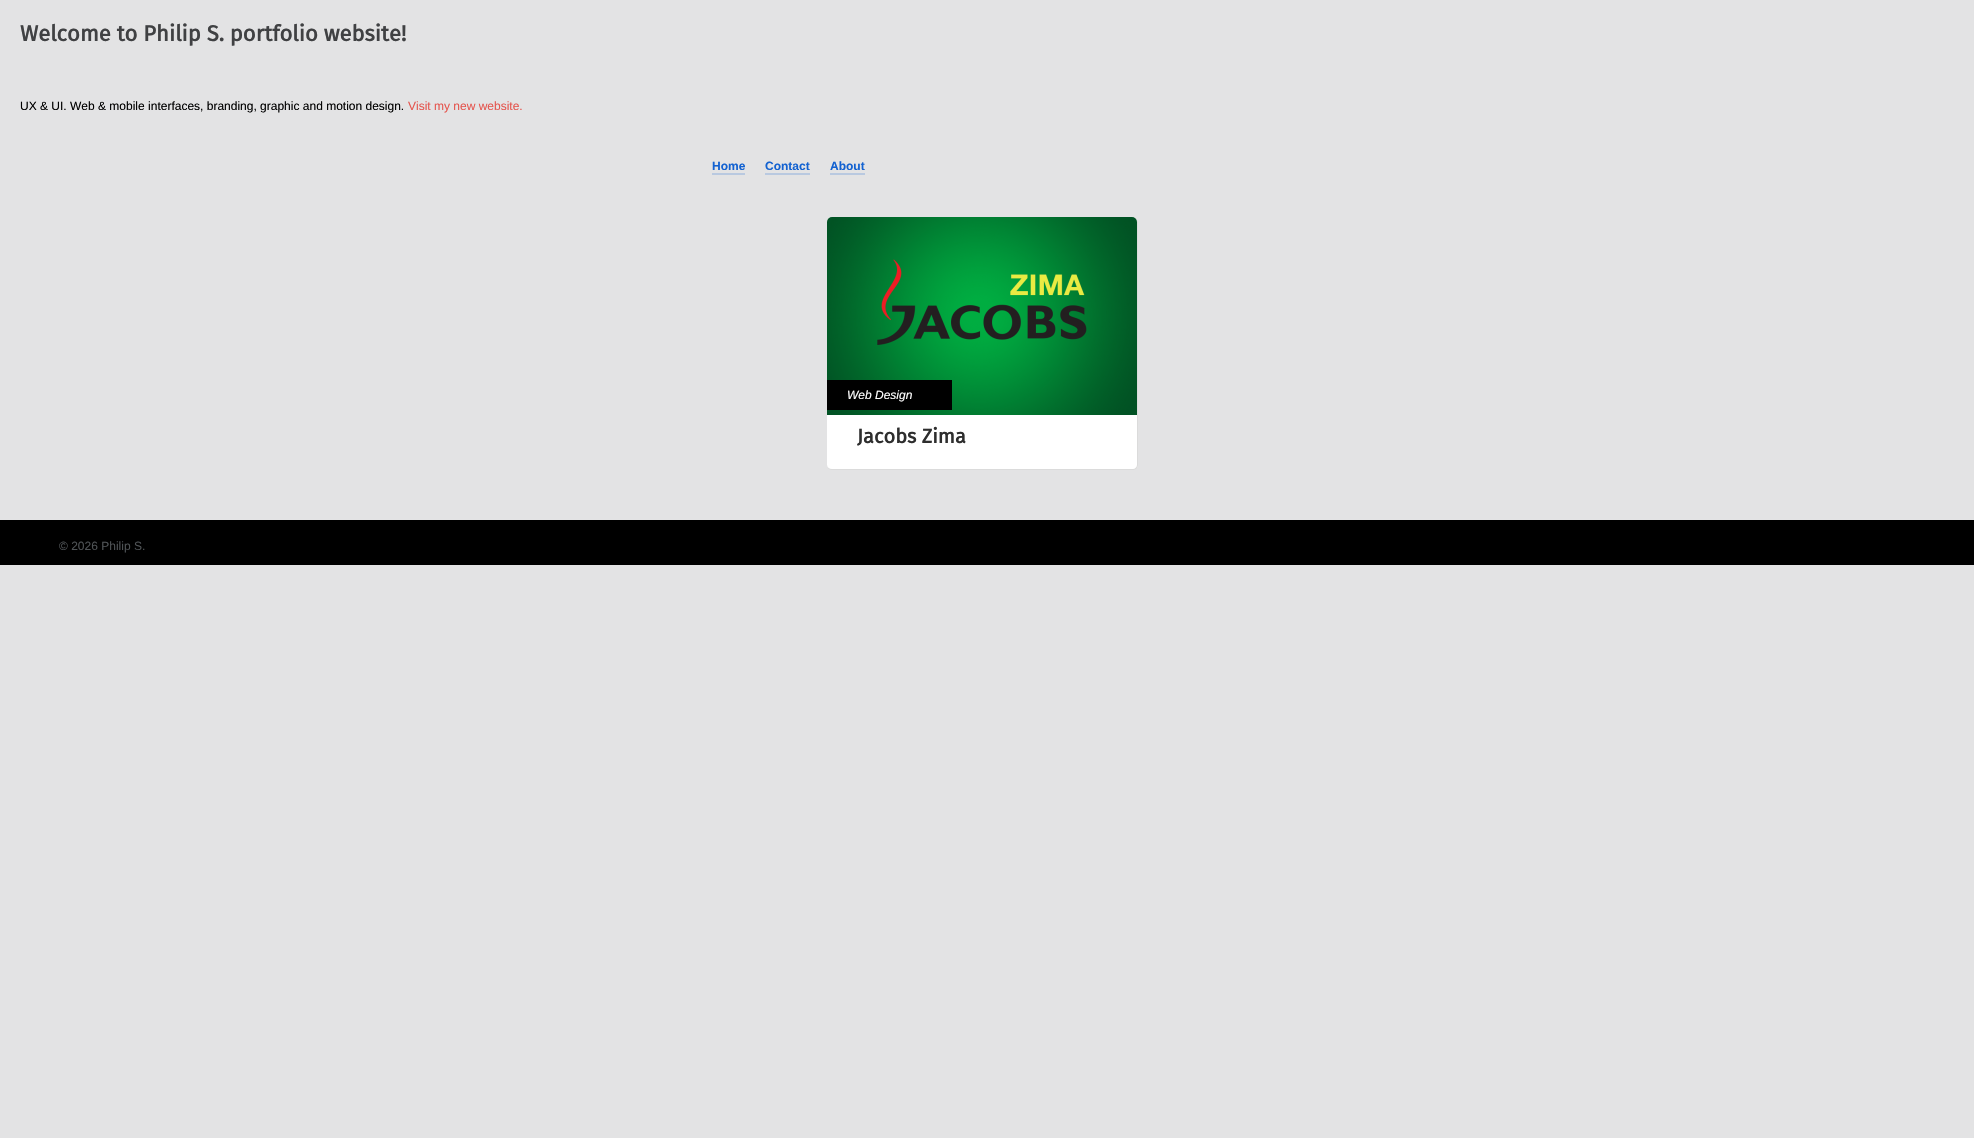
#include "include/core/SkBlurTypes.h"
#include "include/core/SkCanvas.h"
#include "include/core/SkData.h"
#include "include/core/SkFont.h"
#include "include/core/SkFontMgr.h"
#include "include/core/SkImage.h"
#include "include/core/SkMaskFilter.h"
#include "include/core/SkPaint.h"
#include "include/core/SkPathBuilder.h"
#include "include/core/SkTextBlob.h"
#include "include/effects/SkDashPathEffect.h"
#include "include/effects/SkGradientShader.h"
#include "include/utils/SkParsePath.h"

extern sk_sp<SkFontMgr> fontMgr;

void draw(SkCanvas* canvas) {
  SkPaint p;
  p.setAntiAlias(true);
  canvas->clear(SkColorSetRGB(227, 227, 228));
  p.setColor(SkColorSetRGB(185, 201, 224));
  canvas->drawRect(SkRect::MakeLTRB(712, 173, 745, 175), p);
  canvas->drawRect(SkRect::MakeLTRB(765, 173, 810, 175), p);
  canvas->drawRect(SkRect::MakeLTRB(830, 173, 865, 175), p);
  p.setColor(SK_ColorWHITE);
  canvas->drawRoundRect(SkRect::MakeLTRB(827, 217, 1138, 470), 5, 5, p);
  p.setColor(SkColorSetRGB(219, 219, 219));
  canvas->drawPath(SkPathBuilder(SkPathFillType::kEvenOdd).moveTo(832, 217).lineTo(1133, 217).cubicTo(1136, 217, 1138, 219, 1138, 222).lineTo(1138, 465).cubicTo(1138, 468, 1136, 470, 1133, 470).lineTo(832, 470).cubicTo(829, 470, 827, 468, 827, 465).lineTo(827, 222).cubicTo(827, 219, 829, 217, 832, 217).close().moveTo(832, 217).lineTo(1133, 217).cubicTo(1135, 217, 1137, 219, 1137, 222).lineTo(1137, 465).cubicTo(1137, 467, 1135, 469, 1133, 469).lineTo(832, 469).cubicTo(829, 469, 827, 467, 827, 465).lineTo(827, 222).cubicTo(827, 219, 829, 217, 832, 217).close().detach(), p);
  canvas->drawImageRect(SkImages::DeferredFromEncodedData(SkData::MakeFromFileName("images/1.png")), SkRect::MakeLTRB(827, 217, 1137, 415), SkSamplingOptions());
  p.setColor(SK_ColorBLACK);
  canvas->drawRect(SkRect::MakeLTRB(827, 380, 952, 410), p);
  canvas->drawRect(SkRect::MakeLTRB(0, 520, 1974, 565), p);
  SkFont font1(fontMgr->matchFamilyStyle("Fira Sans", SkFontStyle::Bold()), 22);
  font1.setSubpixel(true);
  p.setColor(SkColorSetRGB(64, 65, 67));
  canvas->drawString("Welcome to Philip S. portfolio website!", 20, 41, font1, p);
  SkFont font2(fontMgr->matchFamilyStyle("Liberation Sans", SkFontStyle::Normal()), 12);
  font2.setSubpixel(true);
  p.setColor(SK_ColorBLACK);
  canvas->drawString("UX & UI. Web & mobile interfaces, branding, graphic and motion design.", 20, 110, font2, p);
  p.setColor(SkColorSetRGB(229, 86, 79));
  canvas->drawString("Visit my new website.", 408, 110, font2, p);
  SkFont font3(fontMgr->matchFamilyStyle("Liberation Sans", SkFontStyle::Bold()), 12);
  font3.setSubpixel(true);
  p.setColor(SkColorSetRGB(19, 98, 209));
  canvas->drawString("Home", 712, 170, font3, p);
  canvas->drawString("Contact", 765, 170, font3, p);
  canvas->drawString("About", 830, 170, font3, p);
  SkFont font4(fontMgr->matchFamilyStyle("Liberation Sans", SkFontStyle::Italic()), 12);
  font4.setSubpixel(true);
  p.setColor(SK_ColorWHITE);
  canvas->drawString("Web Design", 847, 399, font4, p);
  SkFont font5(fontMgr->matchFamilyStyle("Fira Sans", SkFontStyle::Bold()), 20);
  font5.setSubpixel(true);
  p.setColor(SkColorSetRGB(46, 46, 46));
  canvas->drawString("Jacobs Zima", 857, 443, font5, p);
  p.setColor(SkColorSetRGB(79, 83, 86));
  canvas->drawString("© 2026 Philip S.", 59, 550, font2, p);
}
